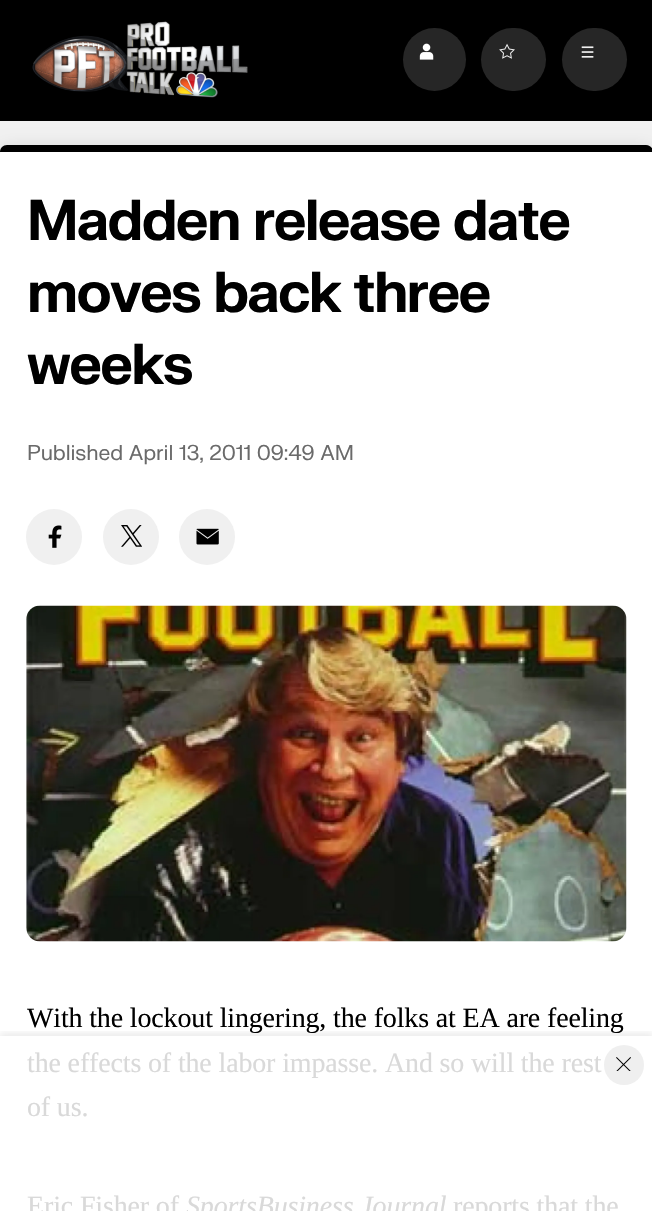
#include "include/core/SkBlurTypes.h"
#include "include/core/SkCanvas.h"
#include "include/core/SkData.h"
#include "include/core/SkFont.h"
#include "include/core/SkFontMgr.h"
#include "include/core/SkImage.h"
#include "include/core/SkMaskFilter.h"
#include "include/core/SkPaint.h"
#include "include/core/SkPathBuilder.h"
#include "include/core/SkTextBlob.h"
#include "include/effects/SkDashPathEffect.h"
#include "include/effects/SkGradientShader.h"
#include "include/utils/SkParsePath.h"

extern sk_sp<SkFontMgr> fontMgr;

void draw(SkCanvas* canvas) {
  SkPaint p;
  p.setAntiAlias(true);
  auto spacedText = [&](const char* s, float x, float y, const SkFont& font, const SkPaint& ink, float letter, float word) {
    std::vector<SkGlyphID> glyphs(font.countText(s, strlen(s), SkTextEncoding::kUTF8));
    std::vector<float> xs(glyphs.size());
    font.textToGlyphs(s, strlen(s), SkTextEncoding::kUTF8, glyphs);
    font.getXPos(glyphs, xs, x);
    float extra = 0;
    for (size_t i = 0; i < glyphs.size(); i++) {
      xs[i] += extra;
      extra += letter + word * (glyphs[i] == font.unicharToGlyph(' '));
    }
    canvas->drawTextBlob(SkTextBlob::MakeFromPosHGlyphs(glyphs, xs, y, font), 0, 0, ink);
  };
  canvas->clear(SkColorSetRGB(241, 241, 241));
  p.setColor(SK_ColorBLACK);
  canvas->drawRect(SkRect::MakeLTRB(0, 0, 652, 121), p);
  canvas->drawImageRect(SkImages::DeferredFromEncodedData(SkData::MakeFromFileName("images/1.png")), SkRect::MakeLTRB(32, 21, 248, 98), SkSamplingOptions());
  p.setColor(SkColorSetRGB(38, 38, 38));
  canvas->drawCircle(434.5f, 59.5f, 31.5f, p);
  canvas->drawImageRect(SkImages::DeferredFromEncodedData(SkData::MakeFromFileName("images/2.png")), SkRect::MakeLTRB(419, 43, 434, 60), SkSamplingOptions());
  canvas->drawRoundRect(SkRect::MakeLTRB(481, 28, 546, 91), 31.5f, 31.5f, p);
  canvas->drawImageRect(SkImages::DeferredFromEncodedData(SkData::MakeFromFileName("images/3.png")), SkRect::MakeLTRB(499, 43, 515, 59), SkSamplingOptions());
  canvas->drawRoundRect(SkRect::MakeLTRB(562, 28, 627, 91), 31.5f, 31.5f, p);
  canvas->drawImageRect(SkImages::DeferredFromEncodedData(SkData::MakeFromFileName("images/4.png")), SkRect::MakeLTRB(581, 46, 594, 58), SkSamplingOptions());
  p.setColor(SkColorSetARGB(38, 0, 0, 0));
  p.setMaskFilter(SkMaskFilter::MakeBlur(kNormal_SkBlurStyle, 9));
  canvas->drawRoundRect(SkRect::MakeLTRB(0, 149, 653, 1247), 9, 9, p);
  p.setMaskFilter(nullptr);
  p.setColor(SK_ColorWHITE);
  canvas->drawRoundRect(SkRect::MakeLTRB(0, 145, 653, 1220), 9, 9, p);
  p.setColor(SK_ColorBLACK);
  canvas->drawPath(SkPathBuilder().moveTo(7, 145).lineTo(646, 145).cubicTo(650, 145, 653, 148, 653, 152).lineTo(0, 152).cubicTo(0, 148, 3, 145, 7, 145).close().detach(), p);
  p.setColor(SkColorSetRGB(240, 240, 240));
  canvas->drawCircle(54, 537, 28, p);
  canvas->drawImageRect(SkImages::DeferredFromEncodedData(SkData::MakeFromFileName("images/5.png")), SkRect::MakeLTRB(48, 525, 62, 548), SkSamplingOptions());
  canvas->drawCircle(131, 537, 28, p);
  canvas->drawImageRect(SkImages::DeferredFromEncodedData(SkData::MakeFromFileName("images/6.png")), SkRect::MakeLTRB(121, 525, 142, 547), SkSamplingOptions());
  canvas->drawCircle(207, 537, 28, p);
  canvas->drawImageRect(SkImages::DeferredFromEncodedData(SkData::MakeFromFileName("images/7.png")), SkRect::MakeLTRB(196, 528, 219, 545), SkSamplingOptions());
  canvas->drawImageRect(SkImages::DeferredFromEncodedData(SkData::MakeFromFileName("images/8.png")), SkRect::MakeLTRB(26, 605, 627, 942), SkSamplingOptions());
  canvas->save();
  canvas->clipRect(SkRect::MakeLTRB(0, 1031, 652, 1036));
  p.setColor(SkColorSetARGB(20, 0, 0, 0));
  p.setMaskFilter(SkMaskFilter::MakeBlur(kNormal_SkBlurStyle, 3.5f));
  canvas->drawRect(SkRect::MakeLTRB(0, 1033, 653, 1208), p);
  p.setMaskFilter(nullptr);
  canvas->restore();
  p.setColor(SkColorSetRGB(239, 239, 239));
  canvas->drawCircle(624, 1065, 20, p);
  canvas->drawImageRect(SkImages::DeferredFromEncodedData(SkData::MakeFromFileName("images/9.png")), SkRect::MakeLTRB(616, 1057, 631, 1071), SkSamplingOptions());
  SkFont font1(fontMgr->matchFamilyStyle("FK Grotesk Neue", SkFontStyle::Bold()), 56);
  font1.setSubpixel(true);
  p.setColor(SK_ColorBLACK);
  spacedText("Madden release date", 27, 240, font1, p, -1.7f, 0);
  spacedText("moves back three", 27, 312, font1, p, -1.7f, 0);
  spacedText("weeks", 27, 384, font1, p, -1.7f, 0);
  SkFont font2(fontMgr->matchFamilyStyle("FK Grotesk Neue", SkFontStyle::Normal()), 21);
  font2.setSubpixel(true);
  p.setColor(SkColorSetRGB(106, 106, 106));
  spacedText("Published April 13, 2011 09:49 AM", 27, 460, font2, p, -0.1f, 0);
  SkFont font3(fontMgr->matchFamilyStyle("Liberation Serif", SkFontStyle::Normal()), 28);
  font3.setSubpixel(true);
  p.setColor(SK_ColorBLACK);
  spacedText("With the lockout lingering, the folks at EA are feeling", 27, 1027, font3, p, -0.15f, 0);
  p.setColor(SkColorSetRGB(217, 217, 217));
  spacedText("the effects of the labor impasse. And so will the rest", 27, 1072, font3, p, -0.15f, 0);
  spacedText("of us.", 27, 1116, font3, p, -0.15f, 0);
  spacedText("Eric Fisher of", 27, 1215, font3, p, -0.15f, 0);
  SkFont font4(fontMgr->matchFamilyStyle("Liberation Serif", SkFontStyle::Italic()), 28);
  font4.setSubpixel(true);
  spacedText("SportsBusiness Journal", 186, 1215, font4, p, -0.15f, 0);
  spacedText("reports that the", 453, 1215, font3, p, -0.15f, 0);
}
